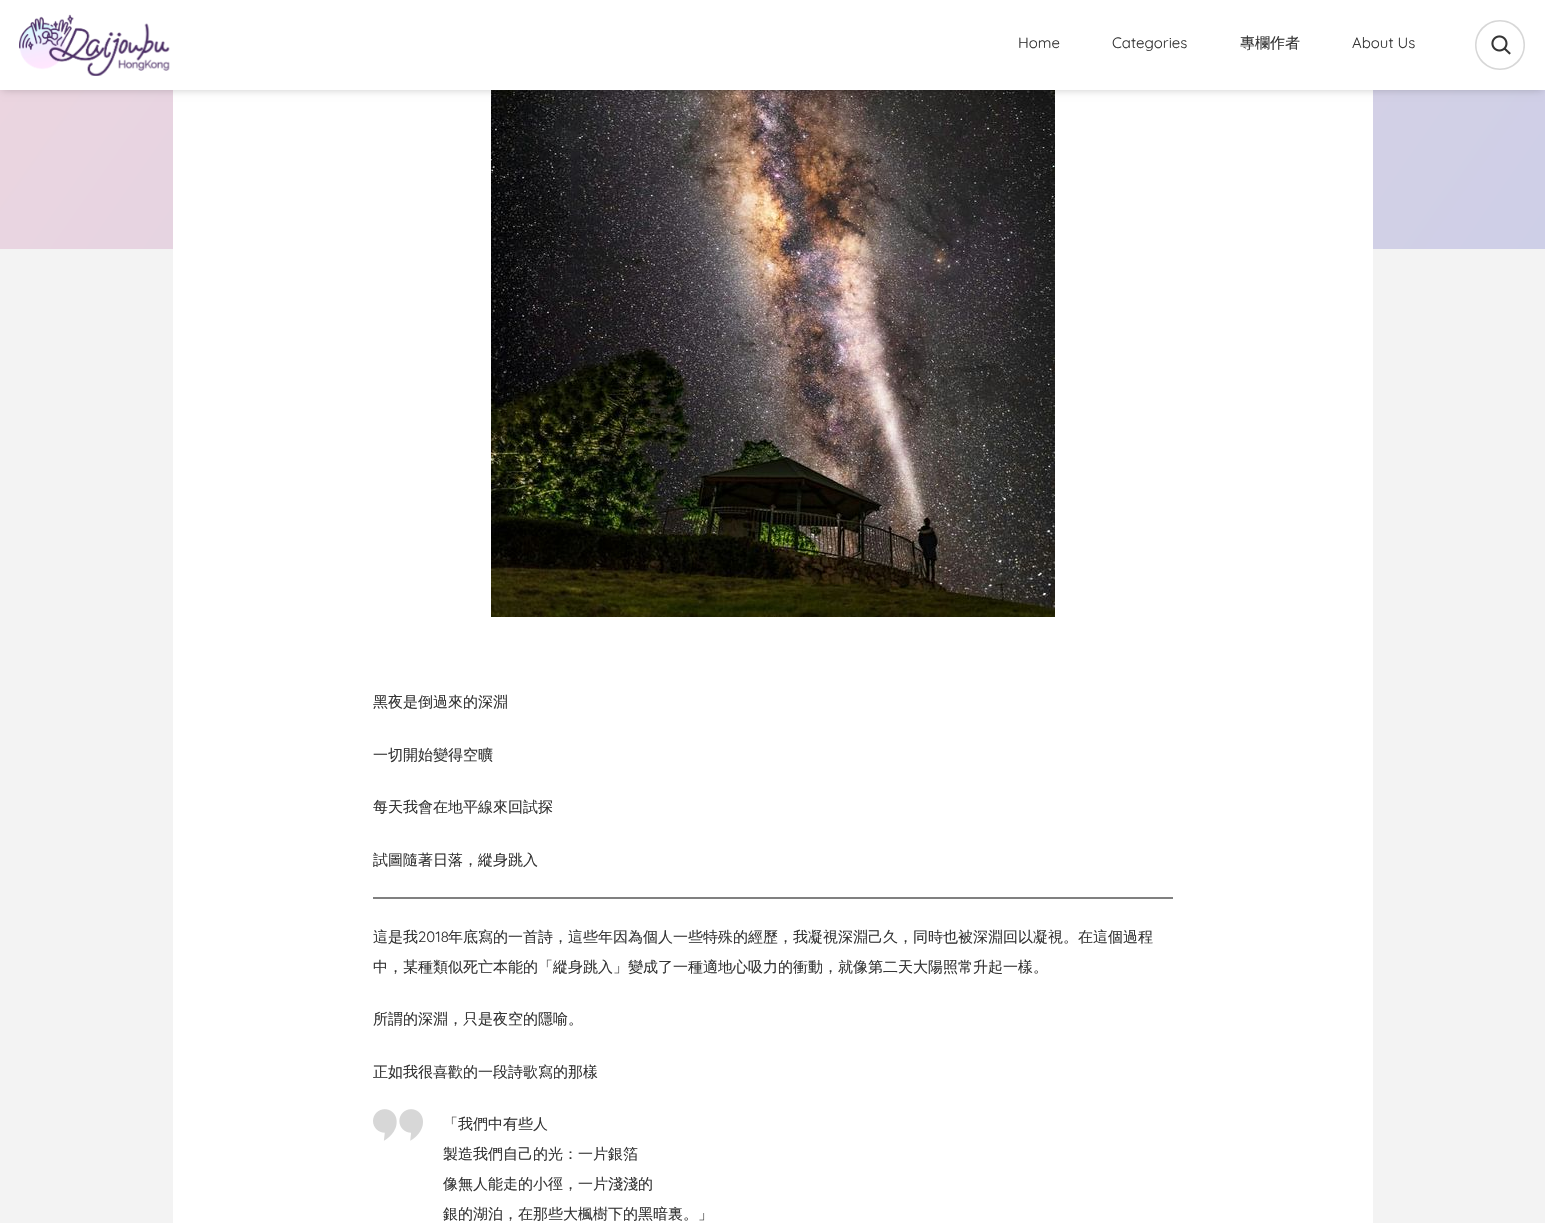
#include "include/core/SkBlurTypes.h"
#include "include/core/SkCanvas.h"
#include "include/core/SkData.h"
#include "include/core/SkFont.h"
#include "include/core/SkFontMgr.h"
#include "include/core/SkImage.h"
#include "include/core/SkMaskFilter.h"
#include "include/core/SkPaint.h"
#include "include/core/SkPathBuilder.h"
#include "include/core/SkTextBlob.h"
#include "include/effects/SkDashPathEffect.h"
#include "include/effects/SkGradientShader.h"
#include "include/utils/SkParsePath.h"

extern sk_sp<SkFontMgr> fontMgr;

void draw(SkCanvas* canvas) {
  SkPaint p;
  p.setAntiAlias(true);
  canvas->clear(SkColorSetRGB(243, 243, 243));
  {
    const SkColor colors[] = {SkColorSetRGB(244, 215, 222), SkColorSetRGB(206, 207, 231)};
    const float stops[] = {0, 1};
    const SkPoint ends[] = {{43, -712}, {1502, 310}};
    p.setShader(SkGradientShader::MakeLinear(ends, colors, stops, 2, SkTileMode::kClamp));
    p.setAlpha(255);
  }
  canvas->drawRect(SkRect::MakeLTRB(0, 90, 1545, 249), p);
  p.setShader(nullptr);
  p.setColor(SK_ColorWHITE);
  canvas->drawRect(SkRect::MakeLTRB(173, 90, 1373, 1223), p);
  canvas->drawImageRect(SkImages::DeferredFromEncodedData(SkData::MakeFromFileName("images/3.png")), SkRect::MakeLTRB(491, 90, 1055, 617), SkSamplingOptions());
  p.setColor(SkColorSetARGB(51, 0, 0, 0));
  p.setMaskFilter(SkMaskFilter::MakeBlur(kNormal_SkBlurStyle, 4));
  canvas->drawRect(SkRect::MakeLTRB(2, 4, 1543, 90), p);
  p.setMaskFilter(nullptr);
  p.setColor(SK_ColorWHITE);
  canvas->drawRect(SkRect::MakeLTRB(0, 0, 1545, 90), p);
  canvas->drawImageRect(SkImages::DeferredFromEncodedData(SkData::MakeFromFileName("images/1.png")), SkRect::MakeLTRB(19, 14, 170, 76), SkSamplingOptions());
  canvas->save();
  canvas->clipPath(SkPathBuilder().moveTo(1500, 20).cubicTo(1514, 20, 1525, 31, 1525, 45).cubicTo(1525, 59, 1514, 70, 1500, 70).cubicTo(1486, 70, 1475, 59, 1475, 45).cubicTo(1475, 31, 1486, 20, 1500, 20).close().detach(), true);
  p.setStyle(SkPaint::kStroke_Style);
  p.setStrokeWidth(3);
  p.setColor(SkColorSetRGB(215, 215, 215));
  canvas->drawCircle(1500, 45, 25, p);
  canvas->restore();
  canvas->drawImageRect(SkImages::DeferredFromEncodedData(SkData::MakeFromFileName("images/2.png")), SkRect::MakeLTRB(1491, 35, 1511, 55), SkSamplingOptions());
  p.setStyle(SkPaint::kFill_Style);
  p.setColor(SkColorSetRGB(128, 128, 128));
  canvas->drawRect(SkRect::MakeLTRB(373, 897, 1173, 899), p);
  canvas->drawImageRect(SkImages::DeferredFromEncodedData(SkData::MakeFromFileName("images/4.png")), SkRect::MakeLTRB(373, 1109, 423, 1141), SkSamplingOptions());
  SkFont font1(fontMgr->matchFamilyStyle("Quicksand", SkFontStyle::Normal()), 15);
  font1.setSubpixel(true);
  p.setColor(SkColorSetRGB(53, 53, 53));
  canvas->drawString("Home", 1018, 48, font1, p);
  canvas->drawString("Categories", 1112, 48, font1, p);
  SkFont font2(fontMgr->matchFamilyStyle("WenQuanYi Zen Hei", SkFontStyle(500, SkFontStyle::kNormal_Width, SkFontStyle::kUpright_Slant)), 15);
  font2.setSubpixel(true);
  canvas->drawString("專欄作者", 1240, 48, font2, p);
  canvas->drawString("About Us", 1352, 48, font1, p);
  canvas->drawString("黑夜是倒過來的深淵", 373, 707, font2, p);
  canvas->drawString("一切開始變得空曠", 373, 760, font2, p);
  canvas->drawString("每天我會在地平線來回試探", 373, 812, font2, p);
  canvas->drawString("試圖隨著日落，縱身跳入", 373, 865, font2, p);
  canvas->drawString("這是我", 373, 942, font2, p);
  canvas->drawString("2018", 418, 942, font1, p);
  canvas->drawString("年底寫的一首詩，這些年因為個人一些特殊的經歷，我凝視深淵己久，同時也被深淵回以凝視。在這個過程", 448, 942, font2, p);
  canvas->drawString("中，某種類似死亡本能的「縱身跳入」變成了一種適地心吸力的衝動，就像第二天大陽照常升起一樣。", 373, 972, font2, p);
  canvas->drawString("所謂的深淵，只是夜空的隱喻。", 373, 1024, font2, p);
  canvas->drawString("正如我很喜歡的一段詩歌寫的那樣", 373, 1077, font2, p);
  canvas->drawString("「我們中有些人", 443, 1129, font2, p);
  canvas->drawString("製造我們自己的光：一片銀箔", 443, 1159, font2, p);
  canvas->drawString("像無人能走的小徑，一片淺淺的", 443, 1189, font2, p);
  canvas->drawString("銀的湖泊，在那些大楓樹下的黑暗裏。」", 443, 1219, font2, p);
}
